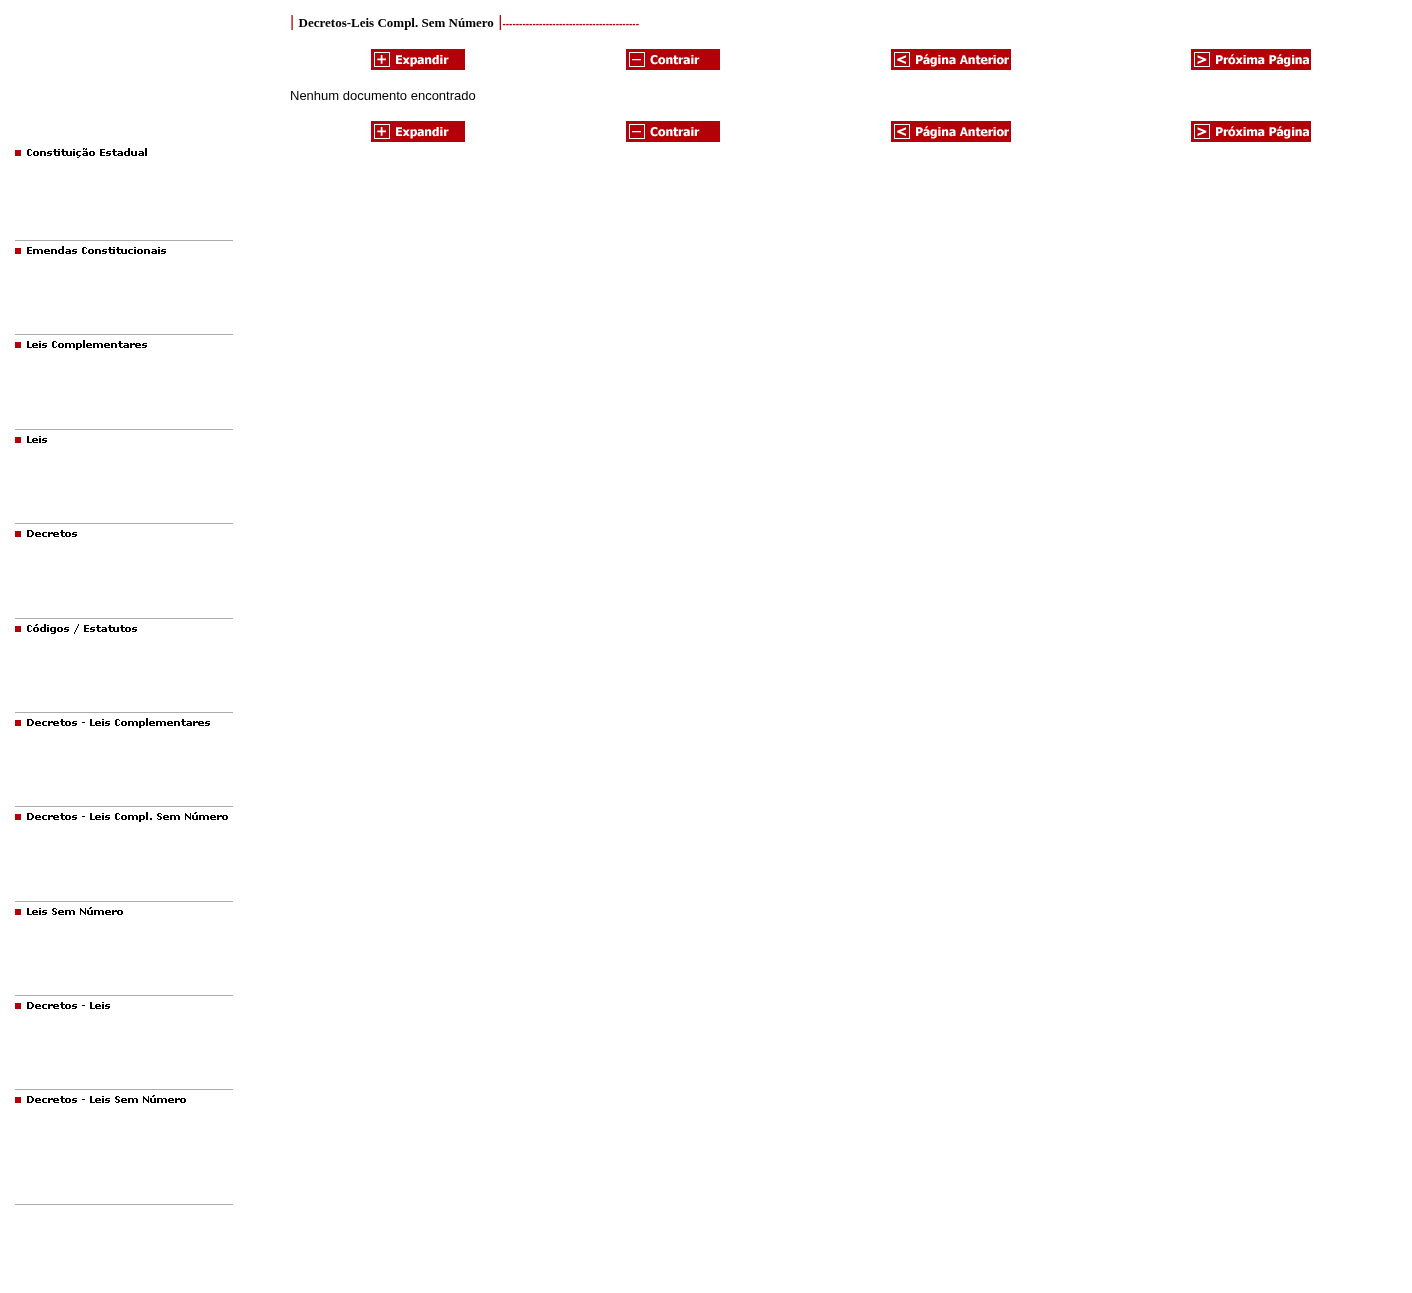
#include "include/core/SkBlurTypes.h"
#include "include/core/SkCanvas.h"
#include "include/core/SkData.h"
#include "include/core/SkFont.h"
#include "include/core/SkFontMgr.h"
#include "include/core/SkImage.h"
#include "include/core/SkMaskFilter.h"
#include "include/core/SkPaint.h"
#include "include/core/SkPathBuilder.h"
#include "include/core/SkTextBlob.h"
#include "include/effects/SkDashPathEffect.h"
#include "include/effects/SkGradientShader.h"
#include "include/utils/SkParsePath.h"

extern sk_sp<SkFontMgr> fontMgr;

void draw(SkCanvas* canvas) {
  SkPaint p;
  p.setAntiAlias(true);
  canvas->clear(SK_ColorWHITE);
  canvas->drawImageRect(SkImages::DeferredFromEncodedData(SkData::MakeFromFileName("images/1.png")), SkRect::MakeLTRB(291, 15, 1311, 142), SkSamplingOptions());
  canvas->drawImageRect(SkImages::DeferredFromEncodedData(SkData::MakeFromFileName("images/2.png")), SkRect::MakeLTRB(15, 148, 147, 158), SkSamplingOptions());
  canvas->drawImageRect(SkImages::DeferredFromEncodedData(SkData::MakeFromFileName("images/3.png")), SkRect::MakeLTRB(15, 240, 233, 254), SkSamplingOptions());
  canvas->drawImageRect(SkImages::DeferredFromEncodedData(SkData::MakeFromFileName("images/4.png")), SkRect::MakeLTRB(15, 334, 233, 350), SkSamplingOptions());
  canvas->drawImageRect(SkImages::DeferredFromEncodedData(SkData::MakeFromFileName("images/5.png")), SkRect::MakeLTRB(15, 429, 233, 443), SkSamplingOptions());
  canvas->drawImageRect(SkImages::DeferredFromEncodedData(SkData::MakeFromFileName("images/6.png")), SkRect::MakeLTRB(15, 523, 233, 537), SkSamplingOptions());
  canvas->drawImageRect(SkImages::DeferredFromEncodedData(SkData::MakeFromFileName("images/7.png")), SkRect::MakeLTRB(15, 618, 233, 634), SkSamplingOptions());
  canvas->drawImageRect(SkImages::DeferredFromEncodedData(SkData::MakeFromFileName("images/8.png")), SkRect::MakeLTRB(15, 712, 233, 728), SkSamplingOptions());
  canvas->drawImageRect(SkImages::DeferredFromEncodedData(SkData::MakeFromFileName("images/9.png")), SkRect::MakeLTRB(15, 806, 233, 822), SkSamplingOptions());
  canvas->drawImageRect(SkImages::DeferredFromEncodedData(SkData::MakeFromFileName("images/10.png")), SkRect::MakeLTRB(15, 901, 233, 915), SkSamplingOptions());
  canvas->drawImageRect(SkImages::DeferredFromEncodedData(SkData::MakeFromFileName("images/11.png")), SkRect::MakeLTRB(15, 995, 233, 1009), SkSamplingOptions());
  canvas->drawImageRect(SkImages::DeferredFromEncodedData(SkData::MakeFromFileName("images/12.png")), SkRect::MakeLTRB(15, 1089, 233, 1103), SkSamplingOptions());
  p.setColor(SkColorSetRGB(172, 172, 172));
  canvas->drawRect(SkRect::MakeLTRB(15, 1204, 233, 1205), p);
}
